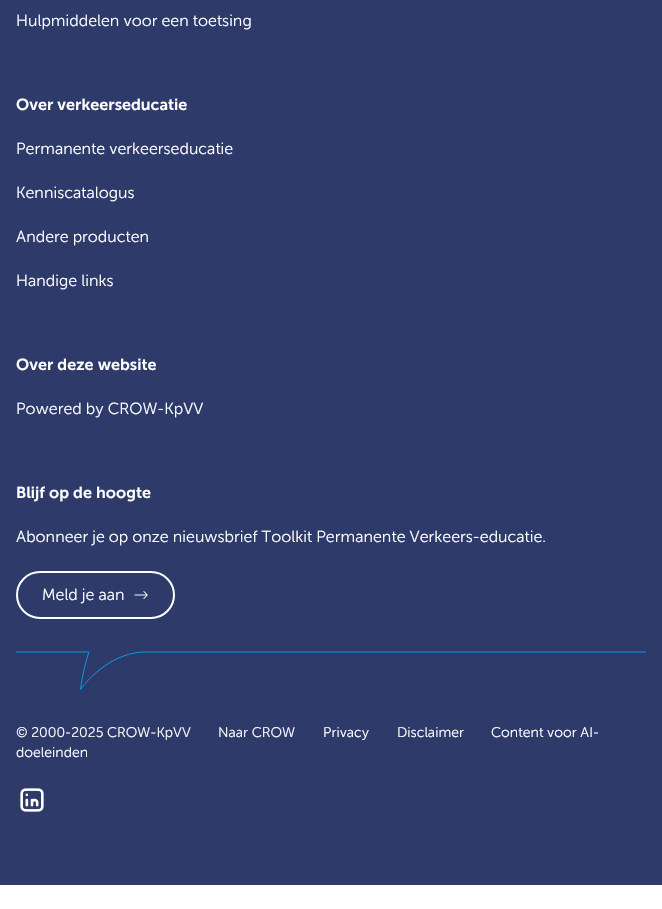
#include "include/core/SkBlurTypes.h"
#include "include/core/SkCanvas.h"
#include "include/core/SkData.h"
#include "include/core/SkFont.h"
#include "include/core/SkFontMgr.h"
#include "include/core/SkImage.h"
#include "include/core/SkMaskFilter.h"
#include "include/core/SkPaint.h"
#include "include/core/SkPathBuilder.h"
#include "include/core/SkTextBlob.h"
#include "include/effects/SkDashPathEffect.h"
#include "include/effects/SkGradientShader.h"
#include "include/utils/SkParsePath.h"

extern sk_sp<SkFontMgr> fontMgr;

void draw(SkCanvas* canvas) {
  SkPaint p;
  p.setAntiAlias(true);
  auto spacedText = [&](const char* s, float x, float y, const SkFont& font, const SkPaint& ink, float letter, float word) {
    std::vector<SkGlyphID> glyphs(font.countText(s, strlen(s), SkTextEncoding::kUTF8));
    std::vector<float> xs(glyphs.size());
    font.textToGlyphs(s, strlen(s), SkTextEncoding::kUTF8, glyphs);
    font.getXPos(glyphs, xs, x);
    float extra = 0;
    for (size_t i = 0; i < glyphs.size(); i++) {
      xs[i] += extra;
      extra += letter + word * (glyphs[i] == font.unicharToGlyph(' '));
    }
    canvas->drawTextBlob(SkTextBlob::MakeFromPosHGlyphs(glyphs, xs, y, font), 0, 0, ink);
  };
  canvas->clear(SK_ColorWHITE);
  p.setColor(SkColorSetRGB(46, 59, 106));
  canvas->drawRect(SkRect::MakeLTRB(0, 0, 662, 885), p);
  p.setStyle(SkPaint::kStroke_Style);
  p.setStrokeWidth(2);
  p.setColor(SK_ColorWHITE);
  canvas->drawRoundRect(SkRect::MakeLTRB(17, 572, 174, 618), 23, 23, p);
  canvas->drawImageRect(SkImages::DeferredFromEncodedData(SkData::MakeFromFileName("images/1.png")), SkRect::MakeLTRB(134, 591, 148, 599), SkSamplingOptions());
  canvas->save();
  canvas->clipRect(SkRect::MakeLTRB(16, 651, 646, 690));
  p.setStrokeWidth(1);
  p.setStrokeJoin(SkPaint::kRound_Join);
  p.setColor(SkColorSetRGB(0, 157, 224));
  canvas->drawPath(SkPathBuilder().moveTo(16, 652).lineTo(89, 652).cubicTo(86.5f, 658.5f, 82, 676.5f, 80.5f, 689.5f).cubicTo(89, 677.5f, 113.5f, 652, 145.5f, 652).lineTo(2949, 652).detach(), p);
  canvas->restore();
  canvas->drawImageRect(SkImages::DeferredFromEncodedData(SkData::MakeFromFileName("images/2.png")), SkRect::MakeLTRB(20, 788, 44, 812), SkSamplingOptions());
  SkFont font1(fontMgr->matchFamilyStyle("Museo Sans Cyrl", SkFontStyle(300, SkFontStyle::kNormal_Width, SkFontStyle::kUpright_Slant)), 16);
  font1.setSubpixel(true);
  p.setStyle(SkPaint::kFill_Style);
  p.setColor(SK_ColorWHITE);
  spacedText("Hulpmiddelen voor een toetsing", 16, 26, font1, p, 0.03f, 0);
  SkFont font2(fontMgr->matchFamilyStyle("Museo Sans Cyrl", SkFontStyle(600, SkFontStyle::kNormal_Width, SkFontStyle::kUpright_Slant)), 16);
  font2.setSubpixel(true);
  spacedText("Over verkeerseducatie", 16, 110, font2, p, 0.03f, 0);
  spacedText("Permanente verkeerseducatie", 16, 154, font1, p, 0.03f, 0);
  spacedText("Kenniscatalogus", 16, 198, font1, p, 0.03f, 0);
  spacedText("Andere producten", 16, 242, font1, p, 0.03f, 0);
  spacedText("Handige links", 16, 286, font1, p, 0.03f, 0);
  spacedText("Over deze website", 16, 370, font2, p, 0.03f, 0);
  spacedText("Powered by CROW-KpVV", 16, 414, font1, p, 0.03f, 0);
  spacedText("Blijf op de hoogte", 16, 498, font2, p, 0.03f, 0);
  spacedText("Abonneer je op onze nieuwsbrief Toolkit Permanente Verkeers-educatie.", 16, 542, font1, p, 0.03f, 0);
  spacedText("Meld je aan", 42, 600, font1, p, 0.03f, 0);
  SkFont font3(fontMgr->matchFamilyStyle("Museo Sans Cyrl", SkFontStyle(300, SkFontStyle::kNormal_Width, SkFontStyle::kUpright_Slant)), 14);
  font3.setSubpixel(true);
  spacedText("© 2000-2025 CROW-KpVV", 16, 737, font3, p, 0.03f, 0);
  spacedText("Naar CROW", 218, 737, font3, p, 0.03f, 0);
  spacedText("Privacy", 323, 737, font3, p, 0.03f, 0);
  spacedText("Disclaimer", 397, 737, font3, p, 0.03f, 0);
  spacedText("Content voor AI-", 491, 737, font3, p, 0.03f, 0);
  spacedText("doeleinden", 16, 757, font3, p, 0.03f, 0);
}
